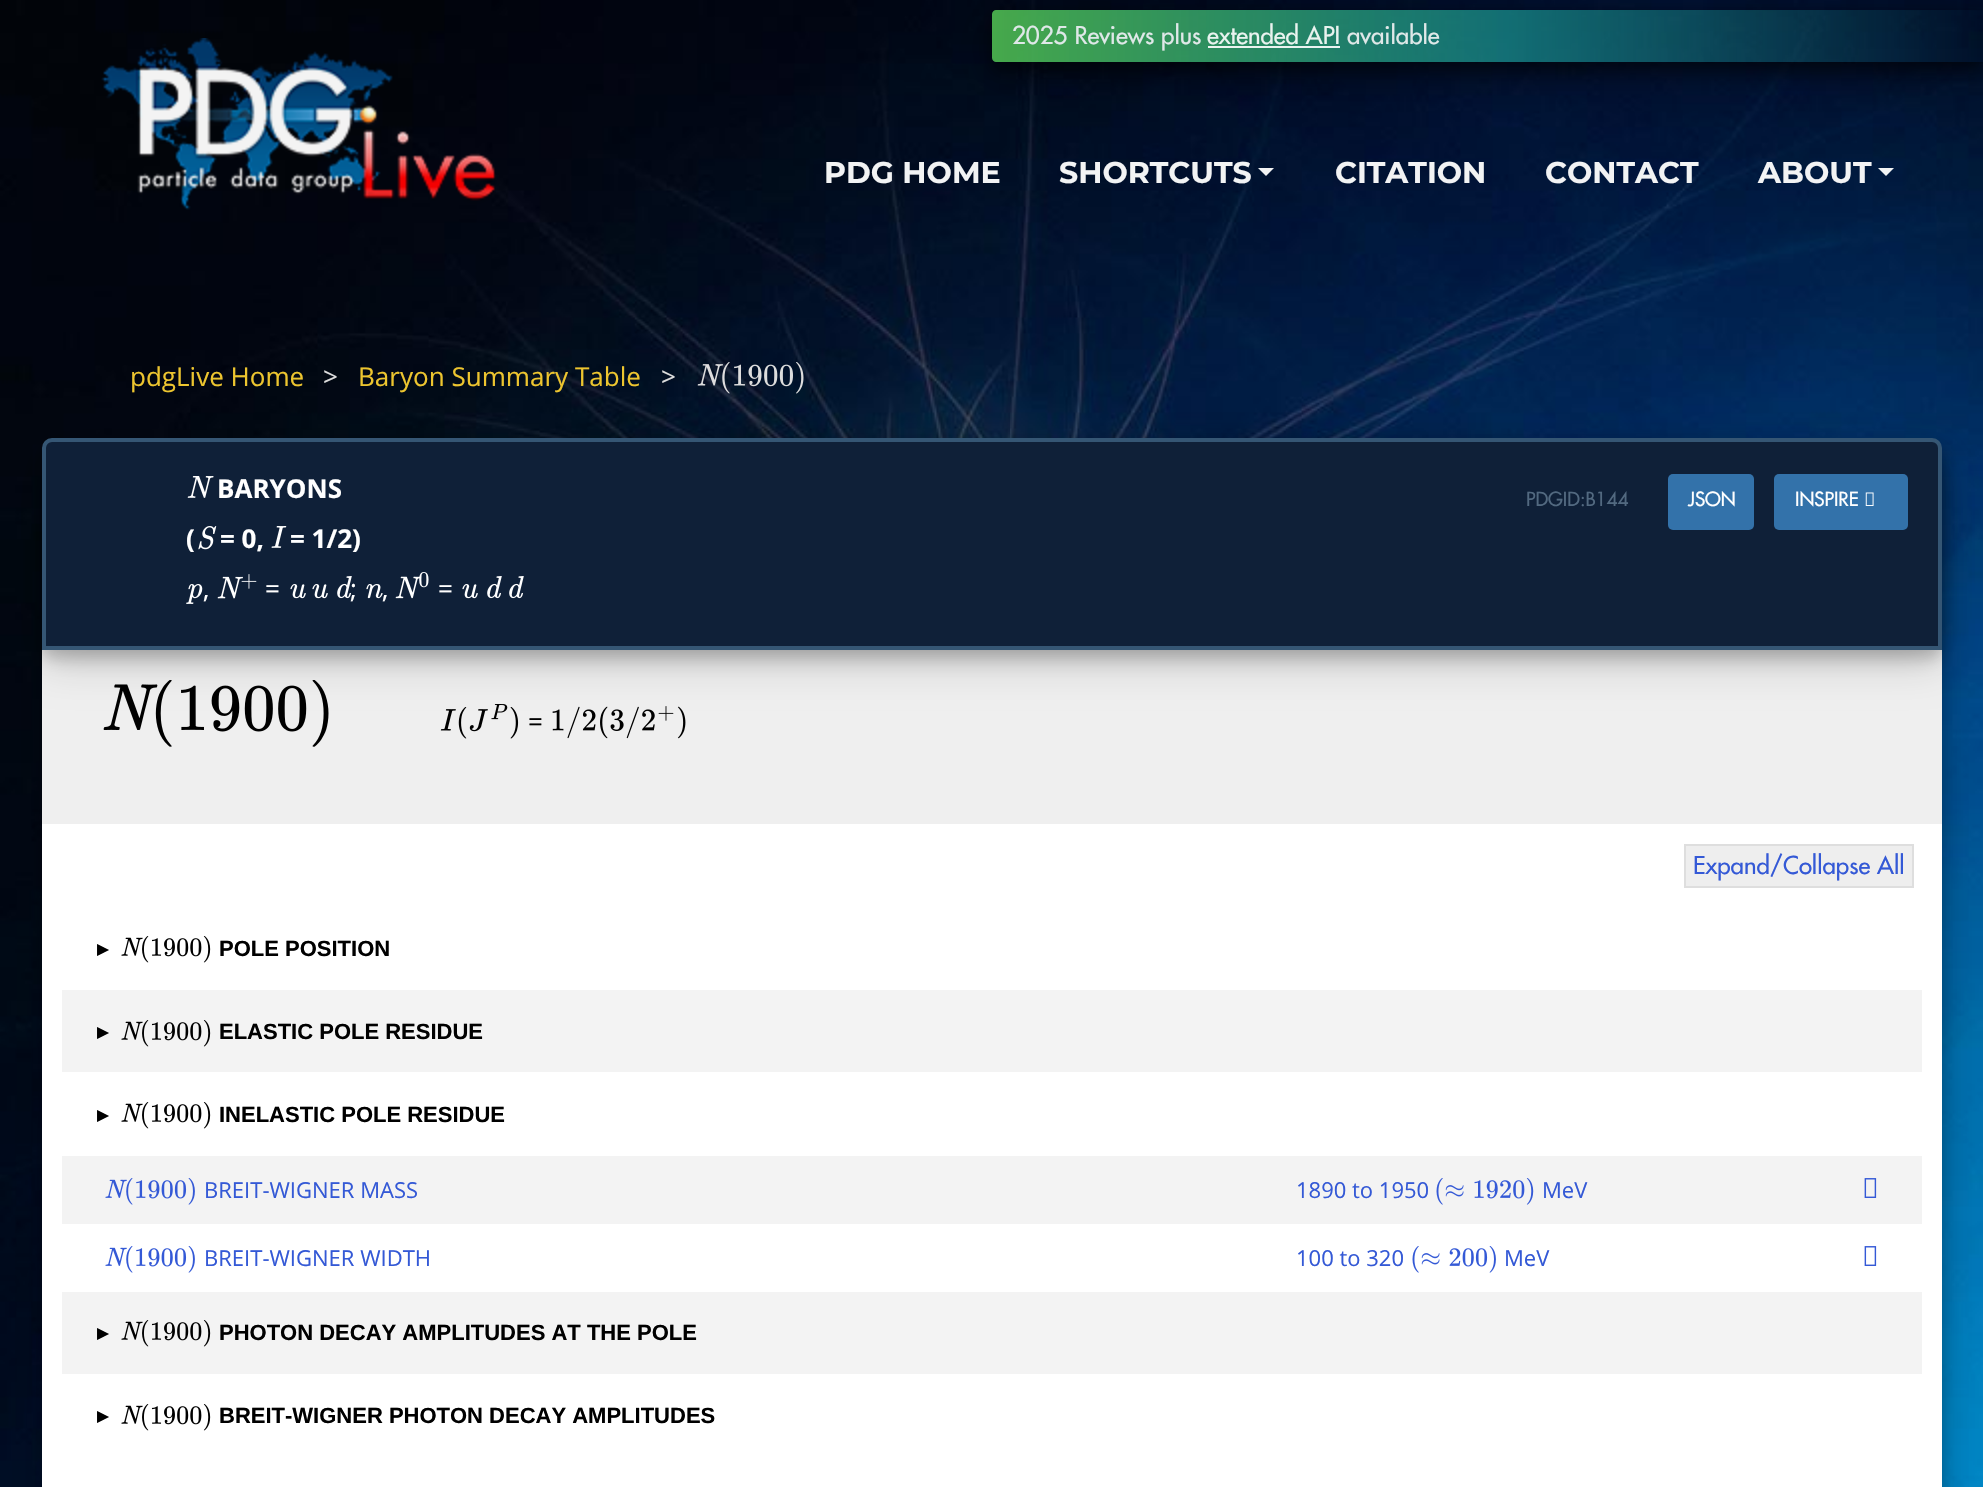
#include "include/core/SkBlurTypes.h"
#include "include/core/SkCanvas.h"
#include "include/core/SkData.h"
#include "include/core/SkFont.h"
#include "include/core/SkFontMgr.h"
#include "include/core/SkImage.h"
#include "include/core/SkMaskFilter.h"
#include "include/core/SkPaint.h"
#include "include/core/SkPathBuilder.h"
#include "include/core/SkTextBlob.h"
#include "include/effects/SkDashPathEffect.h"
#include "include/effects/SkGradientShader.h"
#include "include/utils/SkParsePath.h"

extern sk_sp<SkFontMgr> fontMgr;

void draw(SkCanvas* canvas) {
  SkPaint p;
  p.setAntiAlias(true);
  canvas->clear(SK_ColorWHITE);
  canvas->drawImageRect(SkImages::DeferredFromEncodedData(SkData::MakeFromFileName("images/1.png")), SkRect::MakeLTRB(0, 1468, 1983, 1487), SkSamplingOptions());
  canvas->drawImageRect(SkImages::DeferredFromEncodedData(SkData::MakeFromFileName("images/2.png")), SkRect::MakeLTRB(0, 0, 1983, 1468), SkSamplingOptions());
  canvas->save();
  canvas->clipPath(SkPathBuilder(SkPathFillType::kEvenOdd).moveTo(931, 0).lineTo(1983, 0).lineTo(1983, 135).lineTo(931, 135).close().moveTo(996, 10).lineTo(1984, 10).lineTo(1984, 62).lineTo(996, 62).cubicTo(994, 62, 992, 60, 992, 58).lineTo(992, 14).cubicTo(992, 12, 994, 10, 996, 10).close().detach(), true);
  p.setColor(SkColorSetARGB(112, 0, 0, 0));
  p.setMaskFilter(SkMaskFilter::MakeBlur(kNormal_SkBlurStyle, 20));
  canvas->drawRoundRect(SkRect::MakeLTRB(992, 22, 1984, 74), 4, 4, p);
  p.setMaskFilter(nullptr);
  canvas->restore();
  canvas->save();
  canvas->clipPath(SkPathBuilder(SkPathFillType::kEvenOdd).moveTo(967, 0).lineTo(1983, 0).lineTo(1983, 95).lineTo(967, 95).close().moveTo(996, 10).lineTo(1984, 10).lineTo(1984, 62).lineTo(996, 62).cubicTo(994, 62, 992, 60, 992, 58).lineTo(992, 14).cubicTo(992, 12, 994, 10, 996, 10).close().detach(), true);
  p.setColor(SkColorSetARGB(115, 0, 0, 0));
  p.setMaskFilter(SkMaskFilter::MakeBlur(kNormal_SkBlurStyle, 8));
  canvas->drawRoundRect(SkRect::MakeLTRB(992, 18, 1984, 70), 4, 4, p);
  p.setMaskFilter(nullptr);
  canvas->restore();
  {
    const SkColor colors[] = {SkColorSetARGB(230, 78, 186, 80), SkColorSetARGB(166, 28, 161, 153), SkColorSetARGB(0, 28, 161, 153)};
    const float stops[] = {0, 0.52f, 1};
    const SkPoint ends[] = {{992, 36}, {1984, 36}};
    p.setShader(SkGradientShader::MakeLinear(ends, colors, stops, 3, SkTileMode::kClamp));
    p.setAlpha(255);
  }
  canvas->drawPath(SkPathBuilder().moveTo(996, 10).lineTo(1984, 10).lineTo(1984, 62).lineTo(996, 62).cubicTo(994, 62, 992, 60, 992, 58).lineTo(992, 14).cubicTo(992, 12, 994, 10, 996, 10).close().detach(), p);
  p.setShader(nullptr);
  p.setColor(SkColorSetARGB(230, 255, 255, 255));
  canvas->drawRect(SkRect::MakeLTRB(1208, 46, 1340, 48), p);
  canvas->drawImageRect(SkImages::DeferredFromEncodedData(SkData::MakeFromFileName("images/3.png")), SkRect::MakeLTRB(101, 38, 496, 210), SkSamplingOptions());
  p.setColor(SkColorSetARGB(242, 255, 255, 255));
  canvas->drawPath(SkPathBuilder().moveTo(1258, 168).lineTo(1274, 168).lineTo(1266, 176).close().detach(), p);
  p.setColor(SkColorSetRGB(242, 244, 245));
  canvas->drawPath(SkPathBuilder().moveTo(1878, 168).lineTo(1894, 168).lineTo(1886, 176).close().detach(), p);
  p.setColor(SkColorSetARGB(48, 0, 0, 0));
  p.setMaskFilter(SkMaskFilter::MakeBlur(kNormal_SkBlurStyle, 20));
  canvas->drawRoundRect(SkRect::MakeLTRB(42, 460, 1942, 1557), 10, 10, p);
  p.setMaskFilter(nullptr);
  p.setColor(SkColorSetARGB(51, 0, 0, 0));
  p.setMaskFilter(SkMaskFilter::MakeBlur(kNormal_SkBlurStyle, 8));
  canvas->drawRoundRect(SkRect::MakeLTRB(42, 456, 1942, 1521), 10, 10, p);
  p.setMaskFilter(nullptr);
  p.setColor(SkColorSetRGB(239, 239, 239));
  canvas->drawRect(SkRect::MakeLTRB(42, 650, 1942, 824), p);
  p.setColor(SkColorSetARGB(48, 0, 0, 0));
  p.setMaskFilter(SkMaskFilter::MakeBlur(kNormal_SkBlurStyle, 20));
  canvas->drawRoundRect(SkRect::MakeLTRB(42, 450, 1942, 662), 10, 10, p);
  p.setMaskFilter(nullptr);
  canvas->drawImageRect(SkImages::DeferredFromEncodedData(SkData::MakeFromFileName("images/4.png")), SkRect::MakeLTRB(697, 362, 804, 394), SkSamplingOptions());
  p.setColor(SK_ColorWHITE);
  canvas->drawRect(SkRect::MakeLTRB(42, 824, 1942, 1487), p);
  p.setColor(SkColorSetARGB(51, 0, 0, 0));
  p.setMaskFilter(SkMaskFilter::MakeBlur(kNormal_SkBlurStyle, 8));
  canvas->drawRoundRect(SkRect::MakeLTRB(42, 446, 1942, 658), 10, 10, p);
  p.setMaskFilter(nullptr);
  p.setColor(SkColorSetRGB(15, 32, 56));
  canvas->drawPath(SkPathBuilder().moveTo(52, 440).lineTo(1932, 440).cubicTo(1936.5f, 440, 1940, 443.5f, 1940, 448).lineTo(1940, 648).lineTo(44, 648).lineTo(44, 448).cubicTo(44, 443.5f, 47.5f, 440, 52, 440).close().detach(), p);
  p.setStyle(SkPaint::kStroke_Style);
  p.setStrokeWidth(4);
  p.setColor(SkColorSetRGB(53, 86, 116));
  canvas->drawPath(SkPathBuilder().moveTo(52, 440).lineTo(1932, 440).cubicTo(1936.5f, 440, 1940, 443.5f, 1940, 448).lineTo(1940, 648).lineTo(44, 648).lineTo(44, 448).cubicTo(44, 443.5f, 47.5f, 440, 52, 440).close().detach(), p);
  canvas->drawImageRect(SkImages::DeferredFromEncodedData(SkData::MakeFromFileName("images/5.png")), SkRect::MakeLTRB(187, 476, 214, 498), SkSamplingOptions());
  canvas->drawImageRect(SkImages::DeferredFromEncodedData(SkData::MakeFromFileName("images/6.png")), SkRect::MakeLTRB(198, 526, 217, 550), SkSamplingOptions());
  canvas->drawImageRect(SkImages::DeferredFromEncodedData(SkData::MakeFromFileName("images/7.png")), SkRect::MakeLTRB(271, 526, 287, 548), SkSamplingOptions());
  canvas->drawImageRect(SkImages::DeferredFromEncodedData(SkData::MakeFromFileName("images/8.png")), SkRect::MakeLTRB(186, 584, 203, 604), SkSamplingOptions());
  canvas->drawImageRect(SkImages::DeferredFromEncodedData(SkData::MakeFromFileName("images/9.png")), SkRect::MakeLTRB(217, 574, 257, 599), SkSamplingOptions());
  canvas->drawImageRect(SkImages::DeferredFromEncodedData(SkData::MakeFromFileName("images/10.png")), SkRect::MakeLTRB(290, 584, 306, 599), SkSamplingOptions());
  canvas->drawImageRect(SkImages::DeferredFromEncodedData(SkData::MakeFromFileName("images/10.png")), SkRect::MakeLTRB(312, 584, 328, 599), SkSamplingOptions());
  canvas->drawImageRect(SkImages::DeferredFromEncodedData(SkData::MakeFromFileName("images/13.png")), SkRect::MakeLTRB(395, 572, 429, 599), SkSamplingOptions());
  canvas->drawImageRect(SkImages::DeferredFromEncodedData(SkData::MakeFromFileName("images/10.png")), SkRect::MakeLTRB(462, 584, 478, 599), SkSamplingOptions());
  canvas->drawImageRect(SkImages::DeferredFromEncodedData(SkData::MakeFromFileName("images/14.png")), SkRect::MakeLTRB(487, 576, 502, 599), SkSamplingOptions());
  canvas->drawImageRect(SkImages::DeferredFromEncodedData(SkData::MakeFromFileName("images/14.png")), SkRect::MakeLTRB(509, 576, 524, 599), SkSamplingOptions());
  p.setStyle(SkPaint::kFill_Style);
  p.setColor(SkColorSetRGB(51, 114, 170));
  canvas->drawRoundRect(SkRect::MakeLTRB(1668, 474, 1754, 530), 5, 5, p);
  canvas->drawRoundRect(SkRect::MakeLTRB(1774, 474, 1908, 530), 5, 5, p);
  canvas->drawImageRect(SkImages::DeferredFromEncodedData(SkData::MakeFromFileName("images/15.png")), SkRect::MakeLTRB(1865, 492, 1874, 506), SkSamplingOptions());
  canvas->drawImageRect(SkImages::DeferredFromEncodedData(SkData::MakeFromFileName("images/16.png")), SkRect::MakeLTRB(103, 680, 329, 747), SkSamplingOptions());
  canvas->drawImageRect(SkImages::DeferredFromEncodedData(SkData::MakeFromFileName("images/17.png")), SkRect::MakeLTRB(440, 704, 519, 739), SkSamplingOptions());
  canvas->drawImageRect(SkImages::DeferredFromEncodedData(SkData::MakeFromFileName("images/18.png")), SkRect::MakeLTRB(552, 706, 686, 739), SkSamplingOptions());
  p.setColor(SkColorSetRGB(238, 238, 238));
  canvas->drawRect(SkRect::MakeLTRB(1685, 845, 1913, 887), p);
  p.setStyle(SkPaint::kStroke_Style);
  p.setStrokeWidth(2);
  p.setColor(SkColorSetRGB(222, 222, 222));
  canvas->drawRect(SkRect::MakeLTRB(1685, 845, 1913, 887), p);
  canvas->drawImageRect(SkImages::DeferredFromEncodedData(SkData::MakeFromFileName("images/19.png")), SkRect::MakeLTRB(121, 936, 211, 963), SkSamplingOptions());
  p.setStyle(SkPaint::kFill_Style);
  p.setColor(SkColorSetRGB(243, 243, 243));
  canvas->drawRect(SkRect::MakeLTRB(62, 990, 1922, 1072), p);
  canvas->drawImageRect(SkImages::DeferredFromEncodedData(SkData::MakeFromFileName("images/20.png")), SkRect::MakeLTRB(121, 1020, 211, 1047), SkSamplingOptions());
  canvas->drawImageRect(SkImages::DeferredFromEncodedData(SkData::MakeFromFileName("images/19.png")), SkRect::MakeLTRB(121, 1102, 211, 1129), SkSamplingOptions());
  canvas->drawRect(SkRect::MakeLTRB(62, 1156, 1922, 1224), p);
  canvas->drawImageRect(SkImages::DeferredFromEncodedData(SkData::MakeFromFileName("images/21.png")), SkRect::MakeLTRB(105, 1178, 195, 1205), SkSamplingOptions());
  canvas->drawImageRect(SkImages::DeferredFromEncodedData(SkData::MakeFromFileName("images/22.png")), SkRect::MakeLTRB(1436, 1178, 1534, 1205), SkSamplingOptions());
  canvas->drawImageRect(SkImages::DeferredFromEncodedData(SkData::MakeFromFileName("images/23.png")), SkRect::MakeLTRB(1864, 1178, 1877, 1198), SkSamplingOptions());
  canvas->drawImageRect(SkImages::DeferredFromEncodedData(SkData::MakeFromFileName("images/24.png")), SkRect::MakeLTRB(105, 1246, 195, 1273), SkSamplingOptions());
  canvas->drawImageRect(SkImages::DeferredFromEncodedData(SkData::MakeFromFileName("images/25.png")), SkRect::MakeLTRB(1412, 1246, 1496, 1273), SkSamplingOptions());
  canvas->drawImageRect(SkImages::DeferredFromEncodedData(SkData::MakeFromFileName("images/26.png")), SkRect::MakeLTRB(1864, 1246, 1877, 1266), SkSamplingOptions());
  canvas->drawRect(SkRect::MakeLTRB(62, 1292, 1922, 1374), p);
  canvas->drawImageRect(SkImages::DeferredFromEncodedData(SkData::MakeFromFileName("images/20.png")), SkRect::MakeLTRB(121, 1320, 211, 1347), SkSamplingOptions());
  canvas->drawImageRect(SkImages::DeferredFromEncodedData(SkData::MakeFromFileName("images/19.png")), SkRect::MakeLTRB(121, 1404, 211, 1431), SkSamplingOptions());
  SkFont font1(fontMgr->matchFamilyStyle("Futura", SkFontStyle(500, SkFontStyle::kNormal_Width, SkFontStyle::kUpright_Slant)), 24);
  font1.setSubpixel(true);
  p.setColor(SkColorSetRGB(223, 232, 232));
  canvas->drawString("2025 Reviews plus", 1012, 44, font1, p);
  p.setColor(SkColorSetRGB(233, 243, 239));
  canvas->drawString("extended API", 1207, 44, font1, p);
  p.setColor(SkColorSetRGB(223, 232, 232));
  canvas->drawString("available", 1347, 44, font1, p);
  SkFont font2(fontMgr->matchFamilyStyle("Montserrat", SkFontStyle::Bold()), 30);
  font2.setSubpixel(true);
  p.setColor(SkColorSetRGB(242, 243, 244));
  canvas->drawString("PDG HOME", 824, 183, font2, p);
  canvas->drawString("SHORTCUTS", 1059, 183, font2, p);
  canvas->drawString("CITATION", 1335, 183, font2, p);
  canvas->drawString("CONTACT", 1545, 183, font2, p);
  canvas->drawString("ABOUT", 1758, 183, font2, p);
  SkFont font3(fontMgr->matchFamilyStyle("Open Sans", SkFontStyle::Normal()), 26);
  font3.setSubpixel(true);
  p.setColor(SkColorSetRGB(237, 197, 47));
  canvas->drawString("pdgLive Home", 130, 386, font3, p);
  p.setColor(SkColorSetRGB(221, 221, 221));
  canvas->drawString(">", 323, 386, font3, p);
  p.setColor(SkColorSetRGB(237, 197, 47));
  canvas->drawString("Baryon Summary Table", 358, 386, font3, p);
  p.setColor(SkColorSetRGB(221, 221, 221));
  canvas->drawString(">", 661, 386, font3, p);
  SkFont font4(fontMgr->matchFamilyStyle("Open Sans", SkFontStyle::Bold()), 26);
  font4.setSubpixel(true);
  p.setColor(SK_ColorWHITE);
  canvas->drawString("BARYONS", 217, 498, font4, p);
  canvas->drawString("(", 186, 548, font4, p);
  canvas->drawString("= 0,", 220, 548, font4, p);
  canvas->drawString("= 1/2)", 290, 548, font4, p);
  canvas->drawString("=", 265, 598, font3, p);
  canvas->drawString(";", 350, 598, font3, p);
  canvas->drawImageRect(SkImages::DeferredFromEncodedData(SkData::MakeFromFileName("images/11.png")), SkRect::MakeLTRB(337, 576, 352, 599), SkSamplingOptions());
  canvas->drawString("=", 438, 598, font3, p);
  canvas->drawString(",", 203, 598, font3, p);
  canvas->drawString(",", 382, 598, font3, p);
  canvas->drawImageRect(SkImages::DeferredFromEncodedData(SkData::MakeFromFileName("images/12.png")), SkRect::MakeLTRB(366, 584, 383, 599), SkSamplingOptions());
  SkFont font5(fontMgr->matchFamilyStyle("Futura", SkFontStyle(500, SkFontStyle::kNormal_Width, SkFontStyle::kUpright_Slant)), 19);
  font5.setSubpixel(true);
  p.setColor(SkColorSetRGB(82, 105, 128));
  canvas->drawString("PDGID:B144", 1526, 506, font5, p);
  p.setColor(SK_ColorWHITE);
  canvas->drawString("JSON", 1688, 506, font5, p);
  canvas->drawString("INSPIRE", 1795, 506, font5, p);
  p.setColor(SK_ColorBLACK);
  canvas->drawString("=", 528, 731, font3, p);
  p.setColor(SkColorSetRGB(52, 89, 214));
  canvas->drawString("Expand/Collapse All", 1693, 874, font1, p);
  SkFont font6(fontMgr->matchFamilyStyle("DejaVu Sans", SkFontStyle::Bold()), 22);
  font6.setSubpixel(true);
  p.setColor(SK_ColorBLACK);
  canvas->drawString("▸", 97, 956, font6, p);
  SkFont font7(fontMgr->matchFamilyStyle("Liberation Sans", SkFontStyle::Bold()), 22);
  font7.setSubpixel(true);
  canvas->drawString("POLE POSITION", 219, 956, font7, p);
  canvas->drawString("▸", 97, 1039, font6, p);
  canvas->drawString("ELASTIC POLE RESIDUE", 219, 1039, font7, p);
  canvas->drawString("▸", 97, 1122, font6, p);
  canvas->drawString("INELASTIC POLE RESIDUE", 219, 1122, font7, p);
  SkFont font8(fontMgr->matchFamilyStyle("Open Sans", SkFontStyle::Normal()), 22);
  font8.setSubpixel(true);
  p.setColor(SkColorSetRGB(52, 89, 214));
  canvas->drawString("BREIT-WIGNER MASS", 204, 1198, font8, p);
  canvas->drawString("1890 to 1950", 1296, 1198, font8, p);
  canvas->drawString("MeV", 1542, 1198, font8, p);
  canvas->drawString("BREIT-WIGNER WIDTH", 204, 1266, font8, p);
  canvas->drawString("100 to 320", 1296, 1266, font8, p);
  canvas->drawString("MeV", 1504, 1266, font8, p);
  p.setColor(SK_ColorBLACK);
  canvas->drawString("▸", 97, 1340, font6, p);
  canvas->drawString("PHOTON DECAY AMPLITUDES AT THE POLE", 219, 1340, font7, p);
  canvas->drawString("▸", 97, 1423, font6, p);
  canvas->drawString("BREIT-WIGNER PHOTON DECAY AMPLITUDES", 219, 1423, font7, p);
}
